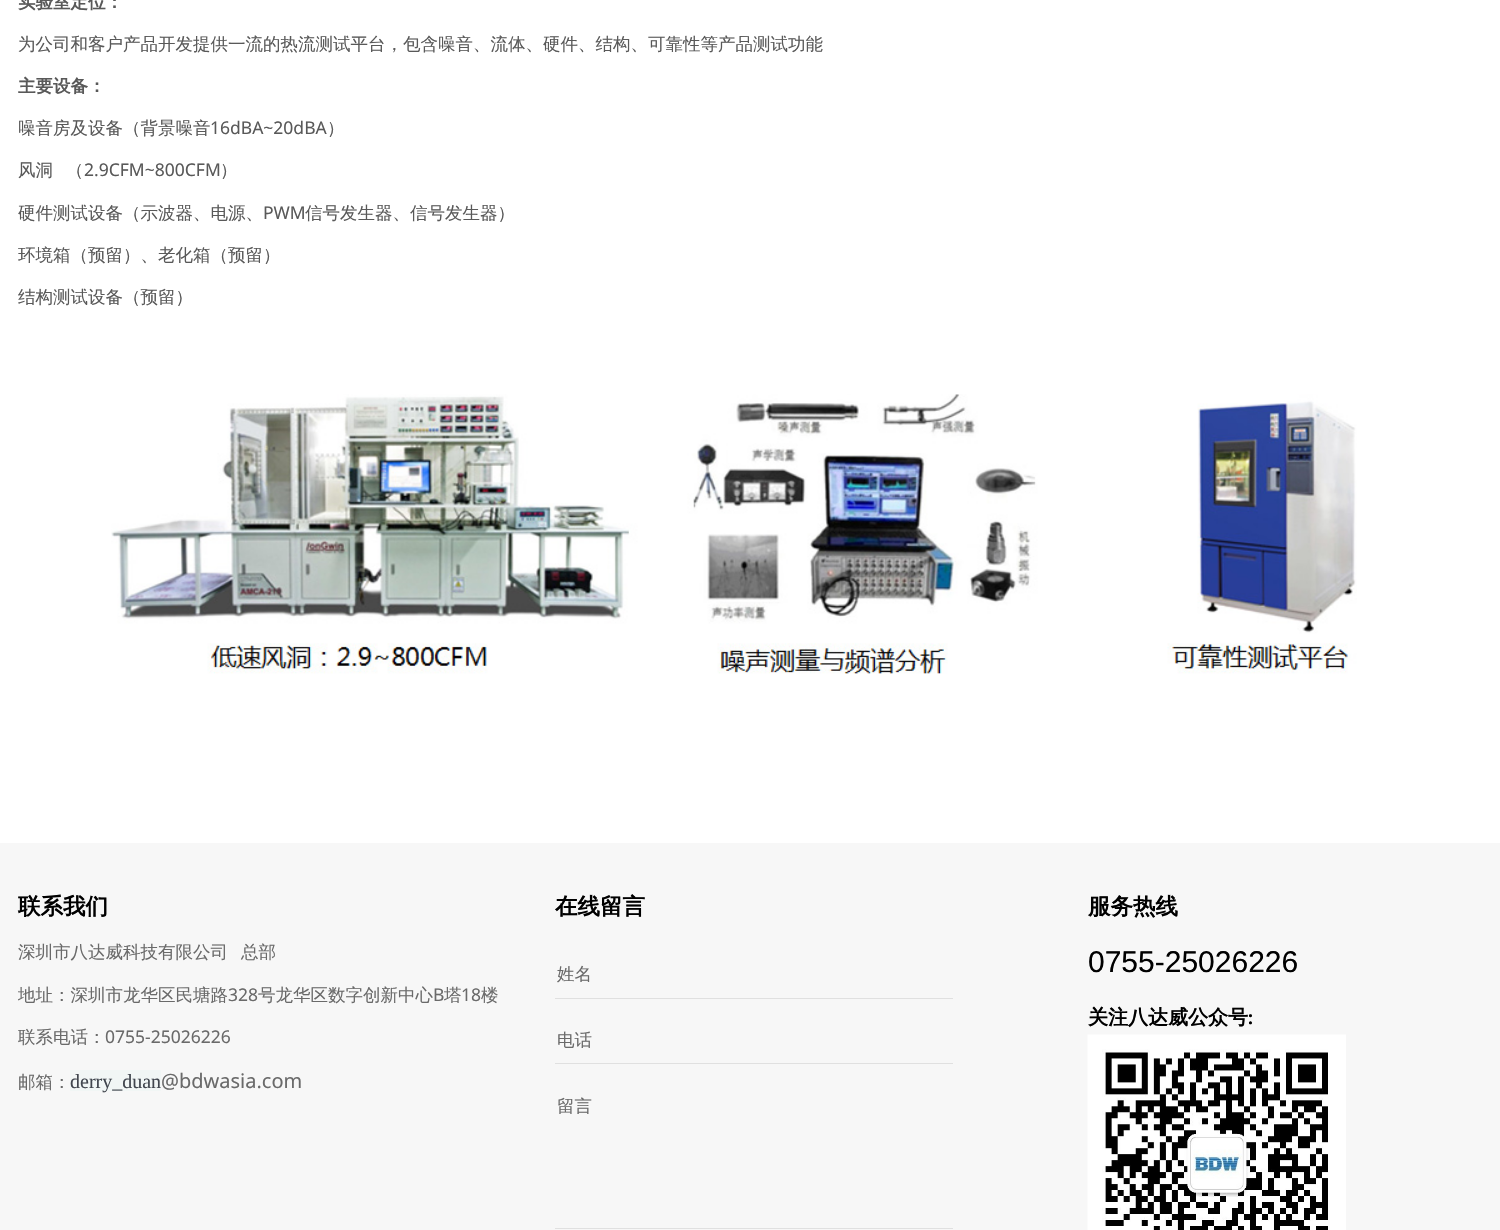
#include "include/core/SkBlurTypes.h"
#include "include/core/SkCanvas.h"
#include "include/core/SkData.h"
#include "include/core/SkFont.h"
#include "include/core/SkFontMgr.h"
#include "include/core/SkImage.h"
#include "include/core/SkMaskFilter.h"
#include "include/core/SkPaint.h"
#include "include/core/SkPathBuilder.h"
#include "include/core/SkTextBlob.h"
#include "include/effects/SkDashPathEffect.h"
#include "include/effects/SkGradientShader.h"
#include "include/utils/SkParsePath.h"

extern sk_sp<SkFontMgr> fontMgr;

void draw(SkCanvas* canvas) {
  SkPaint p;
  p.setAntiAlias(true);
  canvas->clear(SK_ColorWHITE);
  canvas->drawImageRect(SkImages::DeferredFromEncodedData(SkData::MakeFromFileName("images/1.png")), SkRect::MakeLTRB(111, 394, 1357, 674), SkSamplingOptions());
  p.setColor(SkColorSetRGB(247, 247, 247));
  canvas->drawRect(SkRect::MakeLTRB(0, 843, 1500, 1230), p);
  p.setColor(SkColorSetRGB(241, 246, 245));
  canvas->drawRect(SkRect::MakeLTRB(70, 1070, 161, 1091), p);
  p.setColor(SkColorSetRGB(224, 224, 224));
  canvas->drawRect(SkRect::MakeLTRB(555, 998, 953, 999), p);
  canvas->drawRect(SkRect::MakeLTRB(555, 1063, 953, 1064), p);
  canvas->drawRect(SkRect::MakeLTRB(555, 1228, 953, 1229), p);
  canvas->drawImageRect(SkImages::DeferredFromEncodedData(SkData::MakeFromFileName("images/2.png")), SkRect::MakeLTRB(1087, 1034, 1346, 1230), SkSamplingOptions());
  SkFont font1(fontMgr->matchFamilyStyle("WenQuanYi Zen Hei", SkFontStyle::Bold()), 17.5f);
  font1.setSubpixel(true);
  p.setColor(SkColorSetRGB(89, 89, 89));
  canvas->drawString("实验室定位：", 18, 8, font1, p);
  SkFont font2(fontMgr->matchFamilyStyle("WenQuanYi Zen Hei", SkFontStyle(500, SkFontStyle::kNormal_Width, SkFontStyle::kUpright_Slant)), 17.5f);
  font2.setSubpixel(true);
  canvas->drawString("为公司和客户产品开发提供一流的热流测试平台，包含噪音、流体、硬件、结构、可靠性等产品测试功能", 18, 50, font2, p);
  canvas->drawString("主要设备：", 18, 92, font1, p);
  canvas->drawString("噪音房及设备（背景噪音", 18, 134, font2, p);
  SkFont font3(fontMgr->matchFamilyStyle("Noto Sans", SkFontStyle::Normal()), 17.5f);
  font3.setSubpixel(true);
  canvas->drawString("16dBA~20dBA", 210, 134, font3, p);
  canvas->drawString("）", 327, 134, font2, p);
  canvas->drawString("风洞", 18, 176, font2, p);
  canvas->drawString("（", 66, 176, font2, p);
  canvas->drawString("2.9CFM~800CFM", 84, 176, font3, p);
  canvas->drawString("）", 220, 176, font2, p);
  canvas->drawString("硬件测试设备（示波器、电源、", 18, 219, font2, p);
  canvas->drawString("PWM", 263, 219, font3, p);
  canvas->drawString("信号发生器、信号发生器）", 305, 219, font2, p);
  canvas->drawString("环境箱（预留）、老化箱（预留）", 18, 261, font2, p);
  canvas->drawString("结构测试设备（预留）", 18, 303, font2, p);
  SkFont font4(fontMgr->matchFamilyStyle("WenQuanYi Zen Hei", SkFontStyle::Bold()), 22.5f);
  font4.setSubpixel(true);
  p.setColor(SK_ColorBLACK);
  canvas->drawString("联系我们", 18, 914, font4, p);
  p.setColor(SkColorSetRGB(106, 106, 106));
  canvas->drawString("深圳市八达威科技有限公司", 18, 958, font2, p);
  canvas->drawString("总部", 241, 958, font2, p);
  canvas->drawString("地址：深圳市龙华区民塘路", 18, 1001, font2, p);
  canvas->drawString("328", 228, 1001, font3, p);
  canvas->drawString("号龙华区数字创新中心", 258, 1001, font2, p);
  canvas->drawString("B", 433, 1001, font3, p);
  canvas->drawString("塔", 444, 1001, font2, p);
  canvas->drawString("18", 461, 1001, font3, p);
  canvas->drawString("楼", 481, 1001, font2, p);
  canvas->drawString("联系电话：", 18, 1043, font2, p);
  canvas->drawString("0755-25026226", 105, 1043, font3, p);
  canvas->drawString("邮箱：", 18, 1088, font2, p);
  SkFont font5(fontMgr->matchFamilyStyle("Liberation Serif", SkFontStyle::Normal()), 20);
  font5.setSubpixel(true);
  p.setColor(SkColorSetRGB(65, 70, 78));
  canvas->drawString("derry_duan", 70, 1088, font5, p);
  SkFont font6(fontMgr->matchFamilyStyle("Noto Sans", SkFontStyle::Normal()), 20);
  font6.setSubpixel(true);
  p.setColor(SkColorSetRGB(106, 106, 106));
  canvas->drawString("@bdwasia.com", 161, 1088, font6, p);
  p.setColor(SK_ColorBLACK);
  canvas->drawString("在线留言", 555, 914, font4, p);
  p.setColor(SkColorSetRGB(106, 106, 106));
  canvas->drawString("姓名", 557, 980, font2, p);
  canvas->drawString("电话", 557, 1046, font2, p);
  canvas->drawString("留言", 557, 1112, font2, p);
  p.setColor(SK_ColorBLACK);
  canvas->drawString("服务热线", 1088, 914, font4, p);
  SkFont font7(fontMgr->matchFamilyStyle("Liberation Sans", SkFontStyle::Normal()), 30);
  font7.setSubpixel(true);
  canvas->drawString("0755-25026226", 1088, 972, font7, p);
  SkFont font8(fontMgr->matchFamilyStyle("WenQuanYi Zen Hei", SkFontStyle::Bold()), 20);
  font8.setSubpixel(true);
  canvas->drawString("关注八达威公众号", 1088, 1024, font8, p);
  SkFont font9(fontMgr->matchFamilyStyle("Noto Sans", SkFontStyle::Bold()), 17.5f);
  font9.setSubpixel(true);
  canvas->drawString(":", 1248, 1024, font9, p);
}
